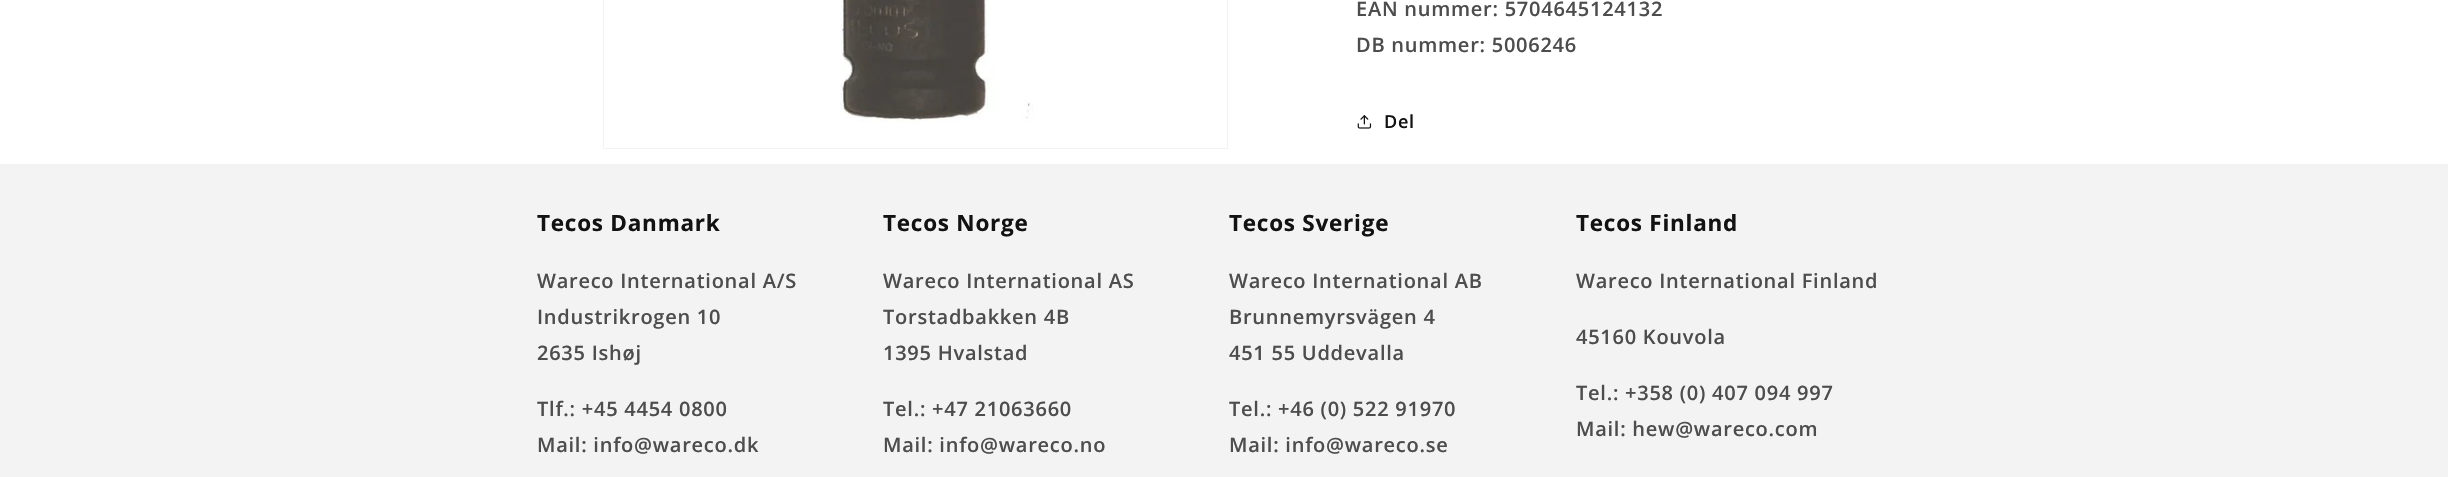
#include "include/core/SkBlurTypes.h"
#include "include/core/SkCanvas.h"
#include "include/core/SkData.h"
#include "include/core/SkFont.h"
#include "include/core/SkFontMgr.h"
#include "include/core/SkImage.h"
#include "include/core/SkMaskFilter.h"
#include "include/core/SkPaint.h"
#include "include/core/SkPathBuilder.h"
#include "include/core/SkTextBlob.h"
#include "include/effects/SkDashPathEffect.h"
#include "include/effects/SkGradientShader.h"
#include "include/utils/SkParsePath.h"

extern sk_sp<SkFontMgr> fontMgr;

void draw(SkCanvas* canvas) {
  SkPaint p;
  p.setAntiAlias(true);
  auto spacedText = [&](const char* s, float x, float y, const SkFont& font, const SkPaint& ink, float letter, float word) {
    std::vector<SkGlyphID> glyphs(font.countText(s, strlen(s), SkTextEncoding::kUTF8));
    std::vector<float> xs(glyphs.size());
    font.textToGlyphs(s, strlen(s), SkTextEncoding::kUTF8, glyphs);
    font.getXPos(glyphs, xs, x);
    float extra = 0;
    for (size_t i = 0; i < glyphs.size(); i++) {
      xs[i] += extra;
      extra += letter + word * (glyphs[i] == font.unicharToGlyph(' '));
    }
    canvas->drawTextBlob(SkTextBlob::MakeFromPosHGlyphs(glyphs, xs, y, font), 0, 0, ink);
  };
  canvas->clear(SK_ColorWHITE);
  p.setStyle(SkPaint::kStroke_Style);
  p.setStrokeWidth(1);
  p.setColor(SkColorSetRGB(243, 243, 243));
  canvas->drawRect(SkRect::MakeLTRB(603.5f, -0.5f, 1227.5f, 148.5f), p);
  canvas->drawImageRect(SkImages::DeferredFromEncodedData(SkData::MakeFromFileName("images/1.png")), SkRect::MakeLTRB(840, 0, 1034, 123), SkSamplingOptions());
  canvas->drawImageRect(SkImages::DeferredFromEncodedData(SkData::MakeFromFileName("images/2.png")), SkRect::MakeLTRB(1357, 115, 1372, 129), SkSamplingOptions());
  p.setStyle(SkPaint::kFill_Style);
  canvas->drawRect(SkRect::MakeLTRB(0, 164, 2448, 477), p);
  SkFont font1(fontMgr->matchFamilyStyle("Open Sans", SkFontStyle(600, SkFontStyle::kNormal_Width, SkFontStyle::kUpright_Slant)), 20);
  font1.setSubpixel(true);
  p.setColor(SkColorSetRGB(77, 77, 77));
  spacedText("EAN nummer: 5704645124132", 1356, 16, font1, p, 0.75f, 0);
  spacedText("DB nummer: 5006246", 1356, 52, font1, p, 0.75f, 0);
  SkFont font2(fontMgr->matchFamilyStyle("Open Sans", SkFontStyle(600, SkFontStyle::kNormal_Width, SkFontStyle::kUpright_Slant)), 18);
  font2.setSubpixel(true);
  p.setColor(SkColorSetRGB(18, 18, 18));
  spacedText("Del", 1384, 128, font2, p, 0.75f, 0);
  SkFont font3(fontMgr->matchFamilyStyle("Open Sans", SkFontStyle::Bold()), 22.5f);
  font3.setSubpixel(true);
  spacedText("Tecos Danmark", 537, 231, font3, p, 0.75f, 0);
  p.setColor(SkColorSetRGB(77, 77, 77));
  spacedText("Wareco International A/S", 537, 288, font1, p, 0.75f, 0);
  spacedText("Industrikrogen 10", 537, 324, font1, p, 0.75f, 0);
  spacedText("2635 Ishøj", 537, 360, font1, p, 0.75f, 0);
  spacedText("Tlf.: +45 4454 0800", 537, 416, font1, p, 0.75f, 0);
  spacedText("Mail: info@wareco.dk", 537, 452, font1, p, 0.75f, 0);
  p.setColor(SkColorSetRGB(18, 18, 18));
  spacedText("Tecos Norge", 883, 231, font3, p, 0.75f, 0);
  p.setColor(SkColorSetRGB(77, 77, 77));
  spacedText("Wareco International AS", 883, 288, font1, p, 0.75f, 0);
  spacedText("Torstadbakken 4B", 883, 324, font1, p, 0.75f, 0);
  spacedText("1395 Hvalstad", 883, 360, font1, p, 0.75f, 0);
  spacedText("Tel.: +47 21063660", 883, 416, font1, p, 0.75f, 0);
  spacedText("Mail: info@wareco.no", 883, 452, font1, p, 0.75f, 0);
  p.setColor(SkColorSetRGB(18, 18, 18));
  spacedText("Tecos Sverige", 1229, 231, font3, p, 0.75f, 0);
  p.setColor(SkColorSetRGB(77, 77, 77));
  spacedText("Wareco International AB", 1229, 288, font1, p, 0.75f, 0);
  spacedText("Brunnemyrsvägen 4", 1229, 324, font1, p, 0.75f, 0);
  spacedText("451 55 Uddevalla", 1229, 360, font1, p, 0.75f, 0);
  spacedText("Tel.: +46 (0) 522 91970", 1229, 416, font1, p, 0.75f, 0);
  spacedText("Mail: info@wareco.se", 1229, 452, font1, p, 0.75f, 0);
  p.setColor(SkColorSetRGB(18, 18, 18));
  spacedText("Tecos Finland", 1576, 231, font3, p, 0.75f, 0);
  p.setColor(SkColorSetRGB(77, 77, 77));
  spacedText("Wareco International Finland", 1576, 288, font1, p, 0.75f, 0);
  spacedText("45160 Kouvola", 1576, 344, font1, p, 0.75f, 0);
  spacedText("Tel.: +358 (0) 407 094 997", 1576, 400, font1, p, 0.75f, 0);
  spacedText("Mail: hew@wareco.com", 1576, 436, font1, p, 0.75f, 0);
}
